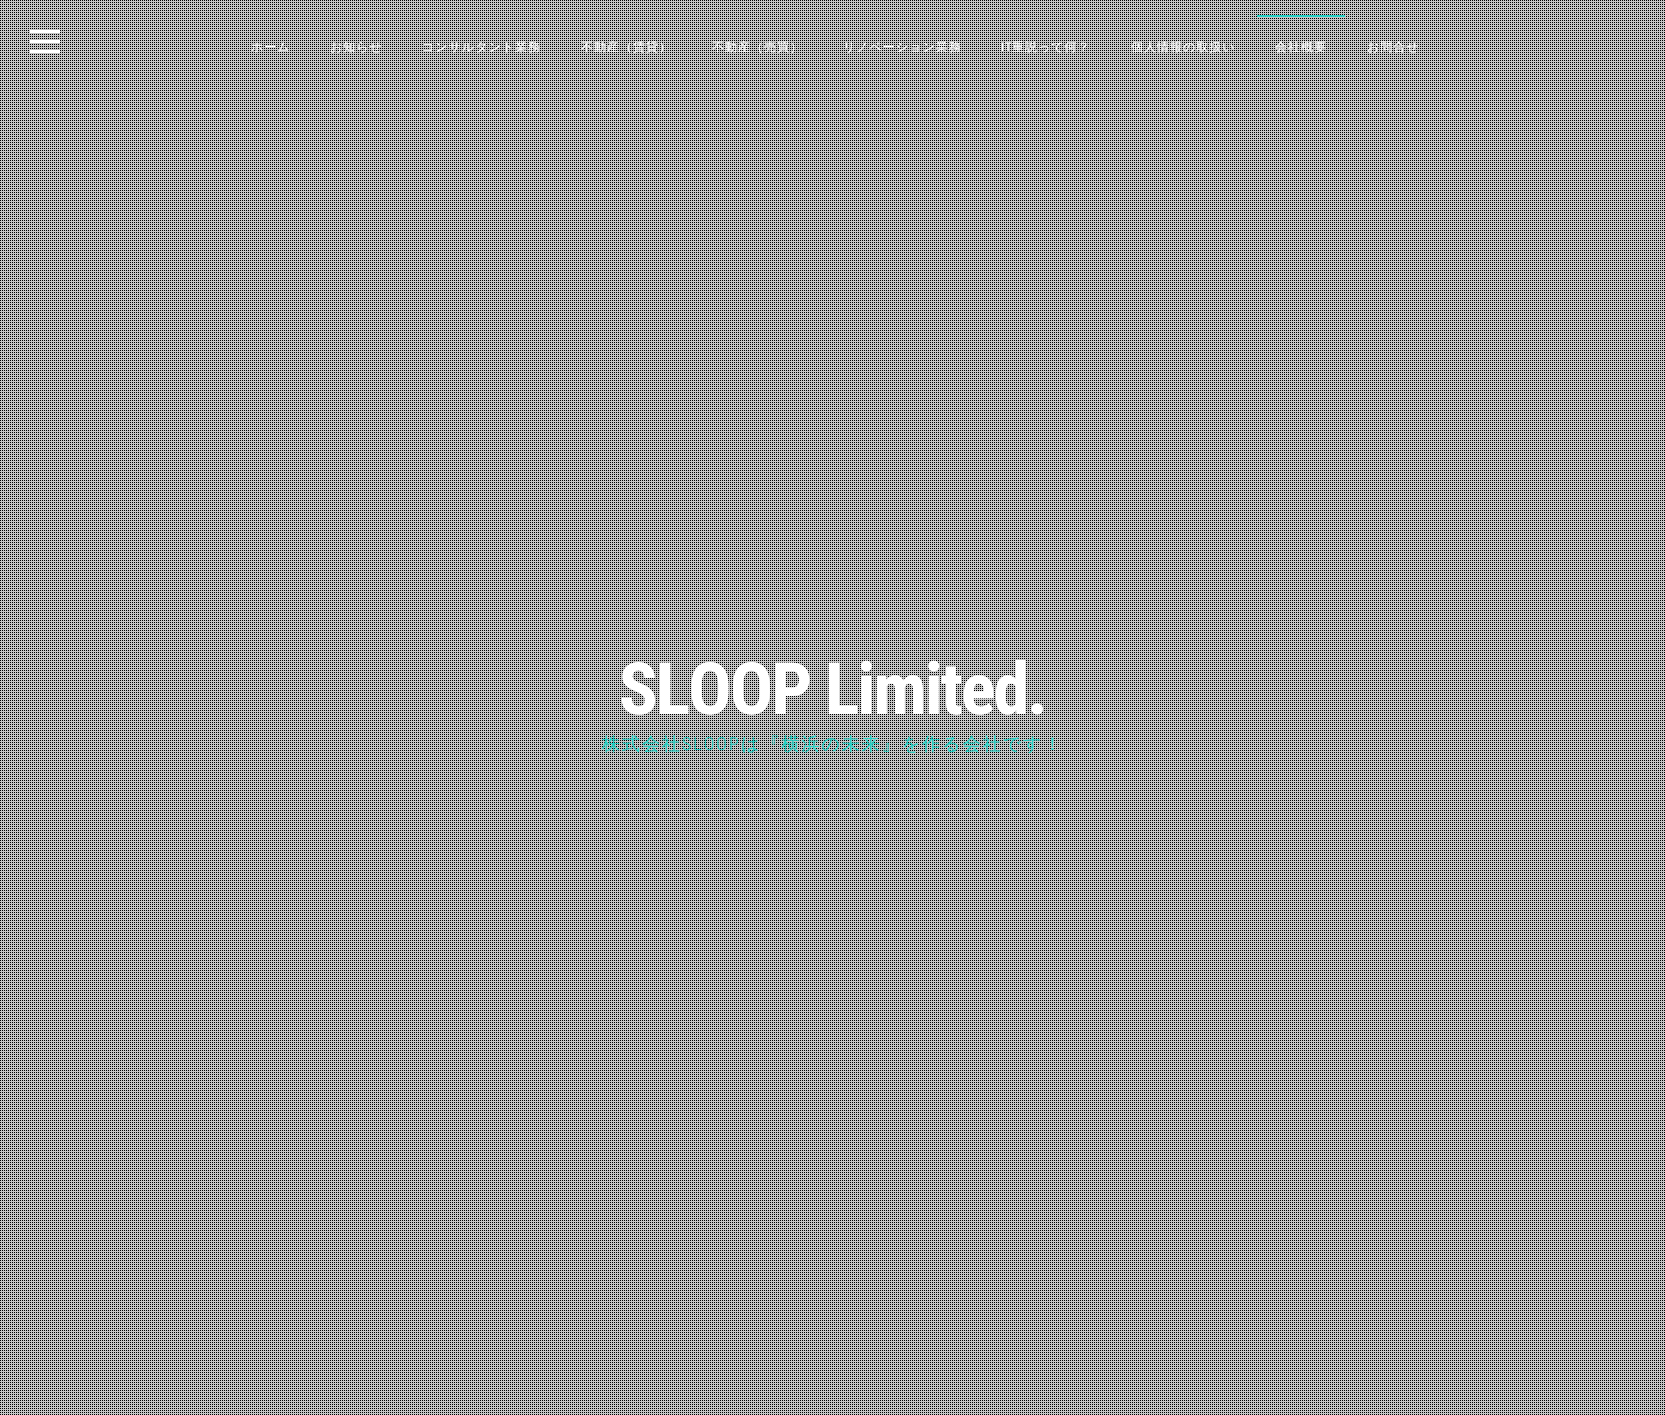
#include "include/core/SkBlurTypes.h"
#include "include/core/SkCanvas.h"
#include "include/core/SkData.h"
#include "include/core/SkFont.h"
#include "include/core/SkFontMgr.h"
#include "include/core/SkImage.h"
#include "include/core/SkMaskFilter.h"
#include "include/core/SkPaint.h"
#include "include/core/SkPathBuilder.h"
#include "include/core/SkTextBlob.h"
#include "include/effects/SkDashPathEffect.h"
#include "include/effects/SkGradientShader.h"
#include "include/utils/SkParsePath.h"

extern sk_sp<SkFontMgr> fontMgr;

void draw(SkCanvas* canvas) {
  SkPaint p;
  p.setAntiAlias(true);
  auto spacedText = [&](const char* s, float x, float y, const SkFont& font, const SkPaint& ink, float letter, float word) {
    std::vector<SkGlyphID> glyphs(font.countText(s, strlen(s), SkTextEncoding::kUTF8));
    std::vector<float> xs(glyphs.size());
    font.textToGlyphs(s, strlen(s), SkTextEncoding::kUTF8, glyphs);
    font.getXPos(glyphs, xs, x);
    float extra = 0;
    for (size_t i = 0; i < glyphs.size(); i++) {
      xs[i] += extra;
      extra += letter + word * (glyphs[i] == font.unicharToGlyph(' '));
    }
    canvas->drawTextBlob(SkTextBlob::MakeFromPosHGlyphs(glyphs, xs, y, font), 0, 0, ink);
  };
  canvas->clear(SkColorSetRGB(197, 197, 197));
  canvas->drawImageRect(SkImages::DeferredFromEncodedData(SkData::MakeFromFileName("images/1.png")), SkRect::MakeLTRB(0, 0, 1665, 1415), SkSamplingOptions());
  p.setColor(SK_ColorWHITE);
  canvas->drawRect(SkRect::MakeLTRB(30, 30, 60, 33), p);
  canvas->drawRect(SkRect::MakeLTRB(30, 40, 60, 43), p);
  canvas->drawRect(SkRect::MakeLTRB(30, 50, 60, 53), p);
  p.setColor(SkColorSetRGB(35, 211, 199));
  canvas->drawRect(SkRect::MakeLTRB(1257, 15, 1345, 17), p);
  SkFont font1(fontMgr->matchFamilyStyle("WenQuanYi Zen Hei", SkFontStyle(500, SkFontStyle::kNormal_Width, SkFontStyle::kUpright_Slant)), 12);
  font1.setSubpixel(true);
  p.setColor(SK_ColorWHITE);
  spacedText("ホーム", 251, 51, font1, p, 1, 0);
  spacedText("お知らせ", 330, 51, font1, p, 1, 0);
  spacedText("コンサルタント業務", 422, 51, font1, p, 1, 0);
  spacedText("不動産（賃貸）", 581, 51, font1, p, 1, 0);
  spacedText("不動産（売買）", 712, 51, font1, p, 1, 0);
  spacedText("リノベーション業務", 843, 51, font1, p, 1, 0);
  SkFont font2(fontMgr->matchFamilyStyle("Roboto Condensed", SkFontStyle::Normal()), 12);
  font2.setSubpixel(true);
  spacedText("IT", 1001, 51, font2, p, 1, 0);
  spacedText("重説って何？", 1012, 51, font1, p, 1, 0);
  spacedText("個人情報の取扱い", 1131, 51, font1, p, 1, 0);
  spacedText("会社概要", 1275, 51, font1, p, 1, 0);
  spacedText("お問合せ", 1367, 51, font1, p, 1, 0);
  SkFont font3(fontMgr->matchFamilyStyle("Roboto Condensed", SkFontStyle::Bold()), 72);
  font3.setSubpixel(true);
  spacedText("SLOOP Limited.", 619, 714, font3, p, -2, 0);
  SkFont font4(fontMgr->matchFamilyStyle("WenQuanYi Zen Hei", SkFontStyle(500, SkFontStyle::kNormal_Width, SkFontStyle::kUpright_Slant)), 18);
  font4.setSubpixel(true);
  p.setColor(SkColorSetRGB(35, 211, 199));
  spacedText("株式会社", 602, 750, font4, p, 2, 0);
  SkFont font5(fontMgr->matchFamilyStyle("Roboto Condensed", SkFontStyle(300, SkFontStyle::kNormal_Width, SkFontStyle::kUpright_Slant)), 18);
  font5.setSubpixel(true);
  spacedText("SLOOP", 682, 750, font5, p, 2, 0);
  spacedText("は『横浜の未来』を作る会社です！", 741, 750, font4, p, 2, 0);
}
